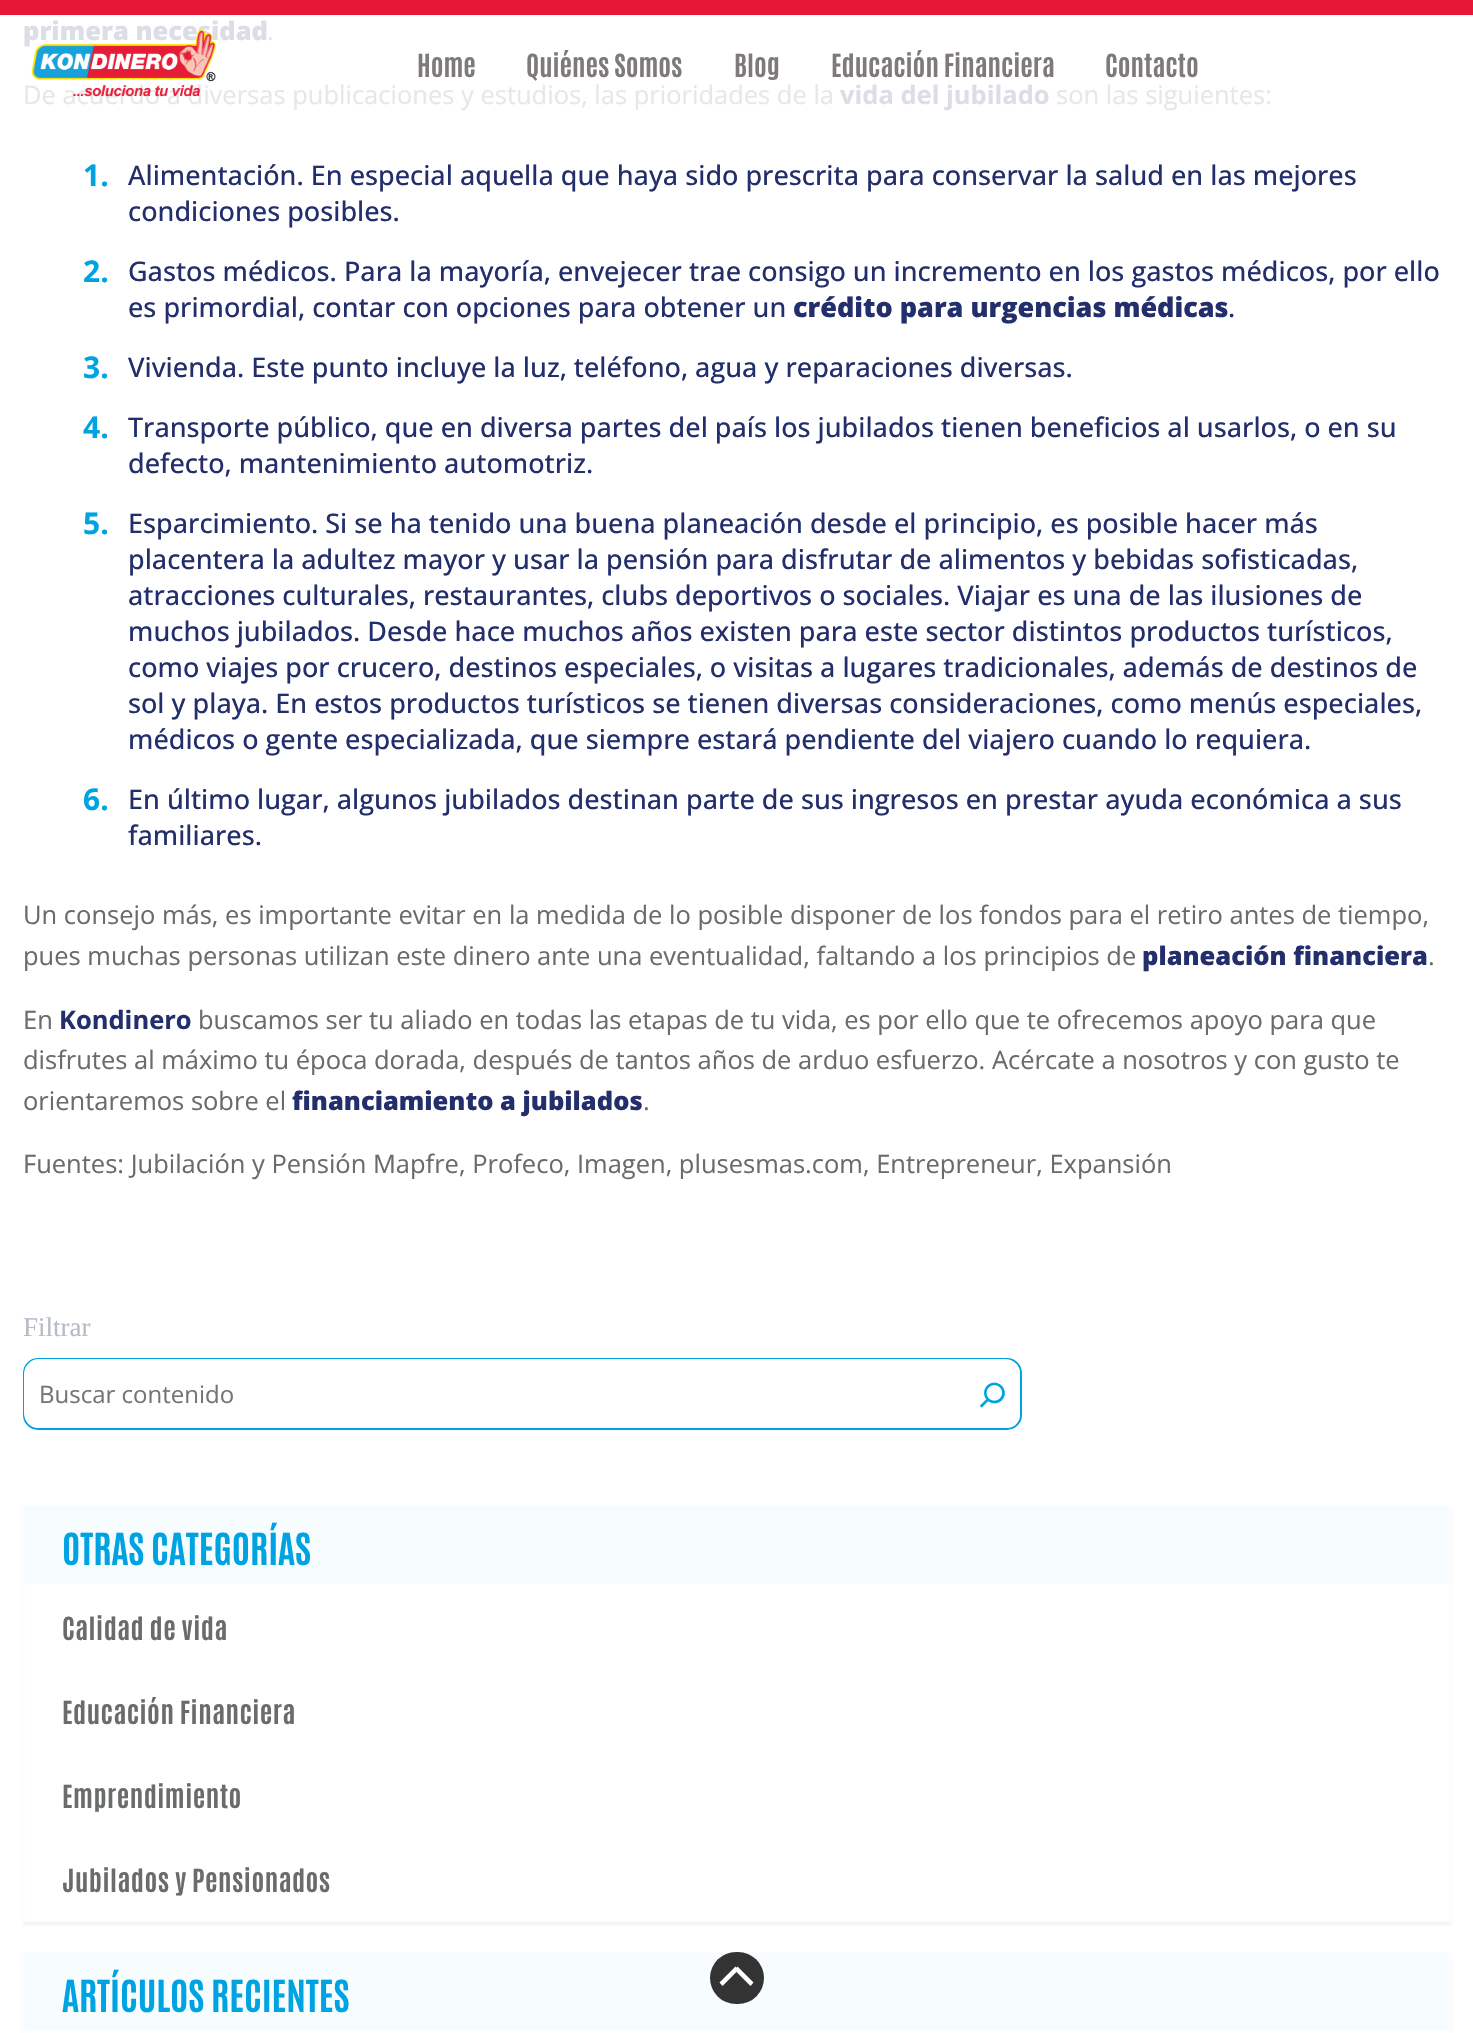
#include "include/core/SkBlurTypes.h"
#include "include/core/SkCanvas.h"
#include "include/core/SkData.h"
#include "include/core/SkFont.h"
#include "include/core/SkFontMgr.h"
#include "include/core/SkImage.h"
#include "include/core/SkMaskFilter.h"
#include "include/core/SkPaint.h"
#include "include/core/SkPathBuilder.h"
#include "include/core/SkTextBlob.h"
#include "include/effects/SkDashPathEffect.h"
#include "include/effects/SkGradientShader.h"
#include "include/utils/SkParsePath.h"

extern sk_sp<SkFontMgr> fontMgr;

void draw(SkCanvas* canvas) {
  SkPaint p;
  p.setAntiAlias(true);
  auto spacedText = [&](const char* s, float x, float y, const SkFont& font, const SkPaint& ink, float letter, float word) {
    std::vector<SkGlyphID> glyphs(font.countText(s, strlen(s), SkTextEncoding::kUTF8));
    std::vector<float> xs(glyphs.size());
    font.textToGlyphs(s, strlen(s), SkTextEncoding::kUTF8, glyphs);
    font.getXPos(glyphs, xs, x);
    float extra = 0;
    for (size_t i = 0; i < glyphs.size(); i++) {
      xs[i] += extra;
      extra += letter + word * (glyphs[i] == font.unicharToGlyph(' '));
    }
    canvas->drawTextBlob(SkTextBlob::MakeFromPosHGlyphs(glyphs, xs, y, font), 0, 0, ink);
  };
  canvas->clear(SK_ColorWHITE);
  p.setStyle(SkPaint::kStroke_Style);
  p.setStrokeWidth(2);
  p.setColor(SkColorSetRGB(0, 163, 226));
  canvas->drawRoundRect(SkRect::MakeLTRB(24, 1359, 1021, 1429), 14, 14, p);
  p.setStyle(SkPaint::kFill_Style);
  p.setColor(SK_ColorWHITE);
  canvas->drawRoundRect(SkRect::MakeLTRB(24, 1359, 1020, 1428), 15, 15, p);
  canvas->drawImageRect(SkImages::DeferredFromEncodedData(SkData::MakeFromFileName("images/1.png")), SkRect::MakeLTRB(979, 1382, 1005, 1408), SkSamplingOptions());
  p.setColor(SkColorSetARGB(105, 224, 224, 224));
  p.setMaskFilter(SkMaskFilter::MakeBlur(kNormal_SkBlurStyle, 1.5f));
  canvas->drawRect(SkRect::MakeLTRB(23, 1508, 1451, 1925), p);
  p.setMaskFilter(nullptr);
  p.setColor(SK_ColorWHITE);
  canvas->drawRect(SkRect::MakeLTRB(25, 1584, 1449, 1920), p);
  p.setStyle(SkPaint::kStroke_Style);
  p.setColor(SkColorSetRGB(253, 253, 253));
  canvas->drawRect(SkRect::MakeLTRB(24, 1506, 1450, 1921), p);
  p.setStyle(SkPaint::kFill_Style);
  p.setColor(SkColorSetRGB(247, 253, 255));
  canvas->drawRect(SkRect::MakeLTRB(24, 1506, 1449, 1584), p);
  p.setColor(SkColorSetARGB(105, 224, 224, 224));
  p.setMaskFilter(SkMaskFilter::MakeBlur(kNormal_SkBlurStyle, 1.5f));
  canvas->drawRect(SkRect::MakeLTRB(23, 1955, 1451, 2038), p);
  p.setMaskFilter(nullptr);
  p.setColor(SK_ColorWHITE);
  canvas->drawRect(SkRect::MakeLTRB(25, 2031, 1449, 2033), p);
  p.setStyle(SkPaint::kStroke_Style);
  p.setColor(SkColorSetRGB(253, 253, 253));
  canvas->drawRect(SkRect::MakeLTRB(24, 1953, 1450, 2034), p);
  p.setStyle(SkPaint::kFill_Style);
  p.setColor(SkColorSetRGB(247, 253, 255));
  canvas->drawRect(SkRect::MakeLTRB(24, 1953, 1449, 2031), p);
  p.setColor(SkColorSetRGB(229, 25, 53));
  canvas->drawRect(SkRect::MakeLTRB(0, 0, 1473, 15), p);
  p.setColor(SkColorSetRGB(51, 51, 51));
  canvas->drawRoundRect(SkRect::MakeLTRB(710, 1952, 764, 2004), 26, 26, p);
  p.setColor(SK_ColorWHITE);
  canvas->drawPath(SkPathBuilder().moveTo(735.5f, 1966.5f).lineTo(738.5f, 1970).lineTo(722.5f, 1986).lineTo(719.5f, 1982.5f).close().detach(), p);
  canvas->drawPath(SkPathBuilder().moveTo(734.5f, 1970).lineTo(737.5f, 1966.5f).lineTo(753.5f, 1982.5f).lineTo(750.5f, 1986).close().detach(), p);
  SkFont font1(fontMgr->matchFamilyStyle("Open Sans", SkFontStyle(800, SkFontStyle::kNormal_Width, SkFontStyle::kUpright_Slant)), 25.5f);
  font1.setSubpixel(true);
  p.setColor(SkColorSetRGB(220, 222, 231));
  canvas->drawString("primera necesidad", 23, 40, font1, p);
  SkFont font2(fontMgr->matchFamilyStyle("Open Sans", SkFontStyle::Normal()), 25.5f);
  font2.setSubpixel(true);
  p.setColor(SkColorSetRGB(231, 231, 231));
  canvas->drawString(".", 267, 40, font2, p);
  canvas->drawString("De acuerdo a diversas publicaciones y estudios, las prioridades de la", 23, 104, font2, p);
  SkFont font3(fontMgr->matchFamilyStyle("Open Sans", SkFontStyle::Bold()), 25.5f);
  font3.setSubpixel(true);
  p.setColor(SkColorSetRGB(220, 222, 231));
  canvas->drawString("vida del jubilado", 840, 104, font3, p);
  p.setColor(SkColorSetRGB(231, 231, 231));
  canvas->drawString("son las siguientes:", 1056, 104, font2, p);
  SkFont font4(fontMgr->matchFamilyStyle("Open Sans", SkFontStyle::Bold()), 30);
  font4.setSubpixel(true);
  p.setColor(SkColorSetRGB(0, 163, 226));
  canvas->drawString("1.", 83, 186, font4, p);
  SkFont font5(fontMgr->matchFamilyStyle("Open Sans", SkFontStyle(500, SkFontStyle::kNormal_Width, SkFontStyle::kUpright_Slant)), 27);
  font5.setSubpixel(true);
  p.setColor(SkColorSetRGB(35, 46, 108));
  canvas->drawString("Alimentación. En especial aquella que haya sido prescrita para conservar la salud en las mejores", 128, 185, font5, p);
  canvas->drawString("condiciones posibles.", 128, 221, font5, p);
  p.setColor(SkColorSetRGB(0, 163, 226));
  canvas->drawString("2.", 83, 282, font4, p);
  p.setColor(SkColorSetRGB(35, 46, 108));
  canvas->drawString("Gastos médicos. Para la mayoría, envejecer trae consigo un incremento en los gastos médicos, por ello", 128, 281, font5, p);
  canvas->drawString("es primordial, contar con opciones para obtener un", 128, 317, font5, p);
  SkFont font6(fontMgr->matchFamilyStyle("Open Sans", SkFontStyle(800, SkFontStyle::kNormal_Width, SkFontStyle::kUpright_Slant)), 27);
  font6.setSubpixel(true);
  canvas->drawString("crédito para urgencias médicas", 793, 317, font6, p);
  canvas->drawString(".", 1228, 317, font5, p);
  p.setColor(SkColorSetRGB(0, 163, 226));
  canvas->drawString("3.", 83, 378, font4, p);
  p.setColor(SkColorSetRGB(35, 46, 108));
  canvas->drawString("Vivienda. Este punto incluye la luz, teléfono, agua y reparaciones diversas.", 128, 377, font5, p);
  p.setColor(SkColorSetRGB(0, 163, 226));
  canvas->drawString("4.", 83, 438, font4, p);
  p.setColor(SkColorSetRGB(35, 46, 108));
  canvas->drawString("Transporte público, que en diversa partes del país los jubilados tienen beneficios al usarlos, o en su", 128, 437, font5, p);
  canvas->drawString("defecto, mantenimiento automotriz.", 128, 473, font5, p);
  p.setColor(SkColorSetRGB(0, 163, 226));
  canvas->drawString("5.", 83, 534, font4, p);
  p.setColor(SkColorSetRGB(35, 46, 108));
  canvas->drawString("Esparcimiento. Si se ha tenido una buena planeación desde el principio, es posible hacer más", 128, 533, font5, p);
  canvas->drawString("placentera la adultez mayor y usar la pensión para disfrutar de alimentos y bebidas sofisticadas,", 128, 569, font5, p);
  canvas->drawString("atracciones culturales, restaurantes, clubs deportivos o sociales. Viajar es una de las ilusiones de", 128, 605, font5, p);
  canvas->drawString("muchos jubilados. Desde hace muchos años existen para este sector distintos productos turísticos,", 128, 641, font5, p);
  canvas->drawString("como viajes por crucero, destinos especiales, o visitas a lugares tradicionales, además de destinos de", 128, 677, font5, p);
  canvas->drawString("sol y playa. En estos productos turísticos se tienen diversas consideraciones, como menús especiales,", 128, 713, font5, p);
  canvas->drawString("médicos o gente especializada, que siempre estará pendiente del viajero cuando lo requiera.", 128, 749, font5, p);
  p.setColor(SkColorSetRGB(0, 163, 226));
  canvas->drawString("6.", 83, 810, font4, p);
  p.setColor(SkColorSetRGB(35, 46, 108));
  canvas->drawString("En último lugar, algunos jubilados destinan parte de sus ingresos en prestar ayuda económica a sus", 128, 809, font5, p);
  canvas->drawString("familiares.", 128, 845, font5, p);
  p.setColor(SkColorSetRGB(105, 107, 108));
  canvas->drawString("Un consejo más, es importante evitar en la medida de lo posible disponer de los fondos para el retiro antes de tiempo,", 23, 924, font2, p);
  canvas->drawString("pues muchas personas utilizan este dinero ante una eventualidad, faltando a los principios de", 23, 965, font2, p);
  p.setColor(SkColorSetRGB(35, 46, 108));
  canvas->drawString("planeación financiera", 1142, 965, font1, p);
  p.setColor(SkColorSetRGB(105, 107, 108));
  canvas->drawString(".", 1428, 965, font2, p);
  canvas->drawString("En", 23, 1029, font2, p);
  p.setColor(SkColorSetRGB(35, 46, 108));
  canvas->drawString("Kondinero", 59, 1029, font3, p);
  p.setColor(SkColorSetRGB(105, 107, 108));
  canvas->drawString("buscamos ser tu aliado en todas las etapas de tu vida, es por ello que te ofrecemos apoyo para que", 198, 1029, font2, p);
  canvas->drawString("disfrutes al máximo tu época dorada, después de tantos años de arduo esfuerzo. Acércate a nosotros y con gusto te", 23, 1069, font2, p);
  canvas->drawString("orientaremos sobre el", 23, 1110, font2, p);
  p.setColor(SkColorSetRGB(35, 46, 108));
  canvas->drawString("financiamiento a jubilados", 292, 1110, font1, p);
  p.setColor(SkColorSetRGB(105, 107, 108));
  canvas->drawString(".", 643, 1110, font2, p);
  canvas->drawString("Fuentes: Jubilación y Pensión Mapfre, Profeco, Imagen, plusesmas.com, Entrepreneur, Expansión", 23, 1173, font2, p);
  SkFont font7(fontMgr->matchFamilyStyle("Liberation Serif", SkFontStyle::Normal()), 27);
  font7.setSubpixel(true);
  p.setColor(SkColorSetRGB(181, 188, 196));
  canvas->drawString("Filtrar", 23, 1336, font7, p);
  SkFont font8(fontMgr->matchFamilyStyle("Open Sans", SkFontStyle::Normal()), 24);
  font8.setSubpixel(true);
  p.setColor(SkColorSetRGB(117, 117, 117));
  canvas->drawString("Buscar contenido", 39, 1403, font8, p);
  SkFont font9(fontMgr->matchFamilyStyle("Antonio", SkFontStyle::Bold()), 37.5f);
  font9.setSubpixel(true);
  p.setColor(SkColorSetRGB(0, 163, 226));
  canvas->drawString("OTRAS CATEGORÍAS", 62, 1565, font9, p);
  SkFont font10(fontMgr->matchFamilyStyle("Antonio", SkFontStyle::Bold()), 27);
  font10.setSubpixel(true);
  p.setColor(SkColorSetRGB(105, 107, 108));
  spacedText("Calidad de vida", 62, 1640, font10, p, 0.5f, 0);
  spacedText("Educación Financiera", 62, 1724, font10, p, 0.5f, 0);
  spacedText("Emprendimiento", 62, 1808, font10, p, 0.5f, 0);
  spacedText("Jubilados y Pensionados", 62, 1892, font10, p, 0.5f, 0);
  p.setColor(SkColorSetRGB(0, 163, 226));
  canvas->drawString("ARTÍCULOS RECIENTES", 62, 2012, font9, p);
  canvas->drawImageRect(SkImages::DeferredFromEncodedData(SkData::MakeFromFileName("images/2.png")), SkRect::MakeLTRB(31, 29, 217, 97), SkSamplingOptions());
  p.setColor(SkColorSetRGB(126, 121, 122));
  canvas->drawString("Home", 417, 77, font10, p);
  canvas->drawString("Quiénes Somos", 526, 77, font10, p);
  canvas->drawString("Blog", 734, 77, font10, p);
  canvas->drawString("Educación Financiera", 831, 77, font10, p);
  canvas->drawString("Contacto", 1105, 77, font10, p);
}
